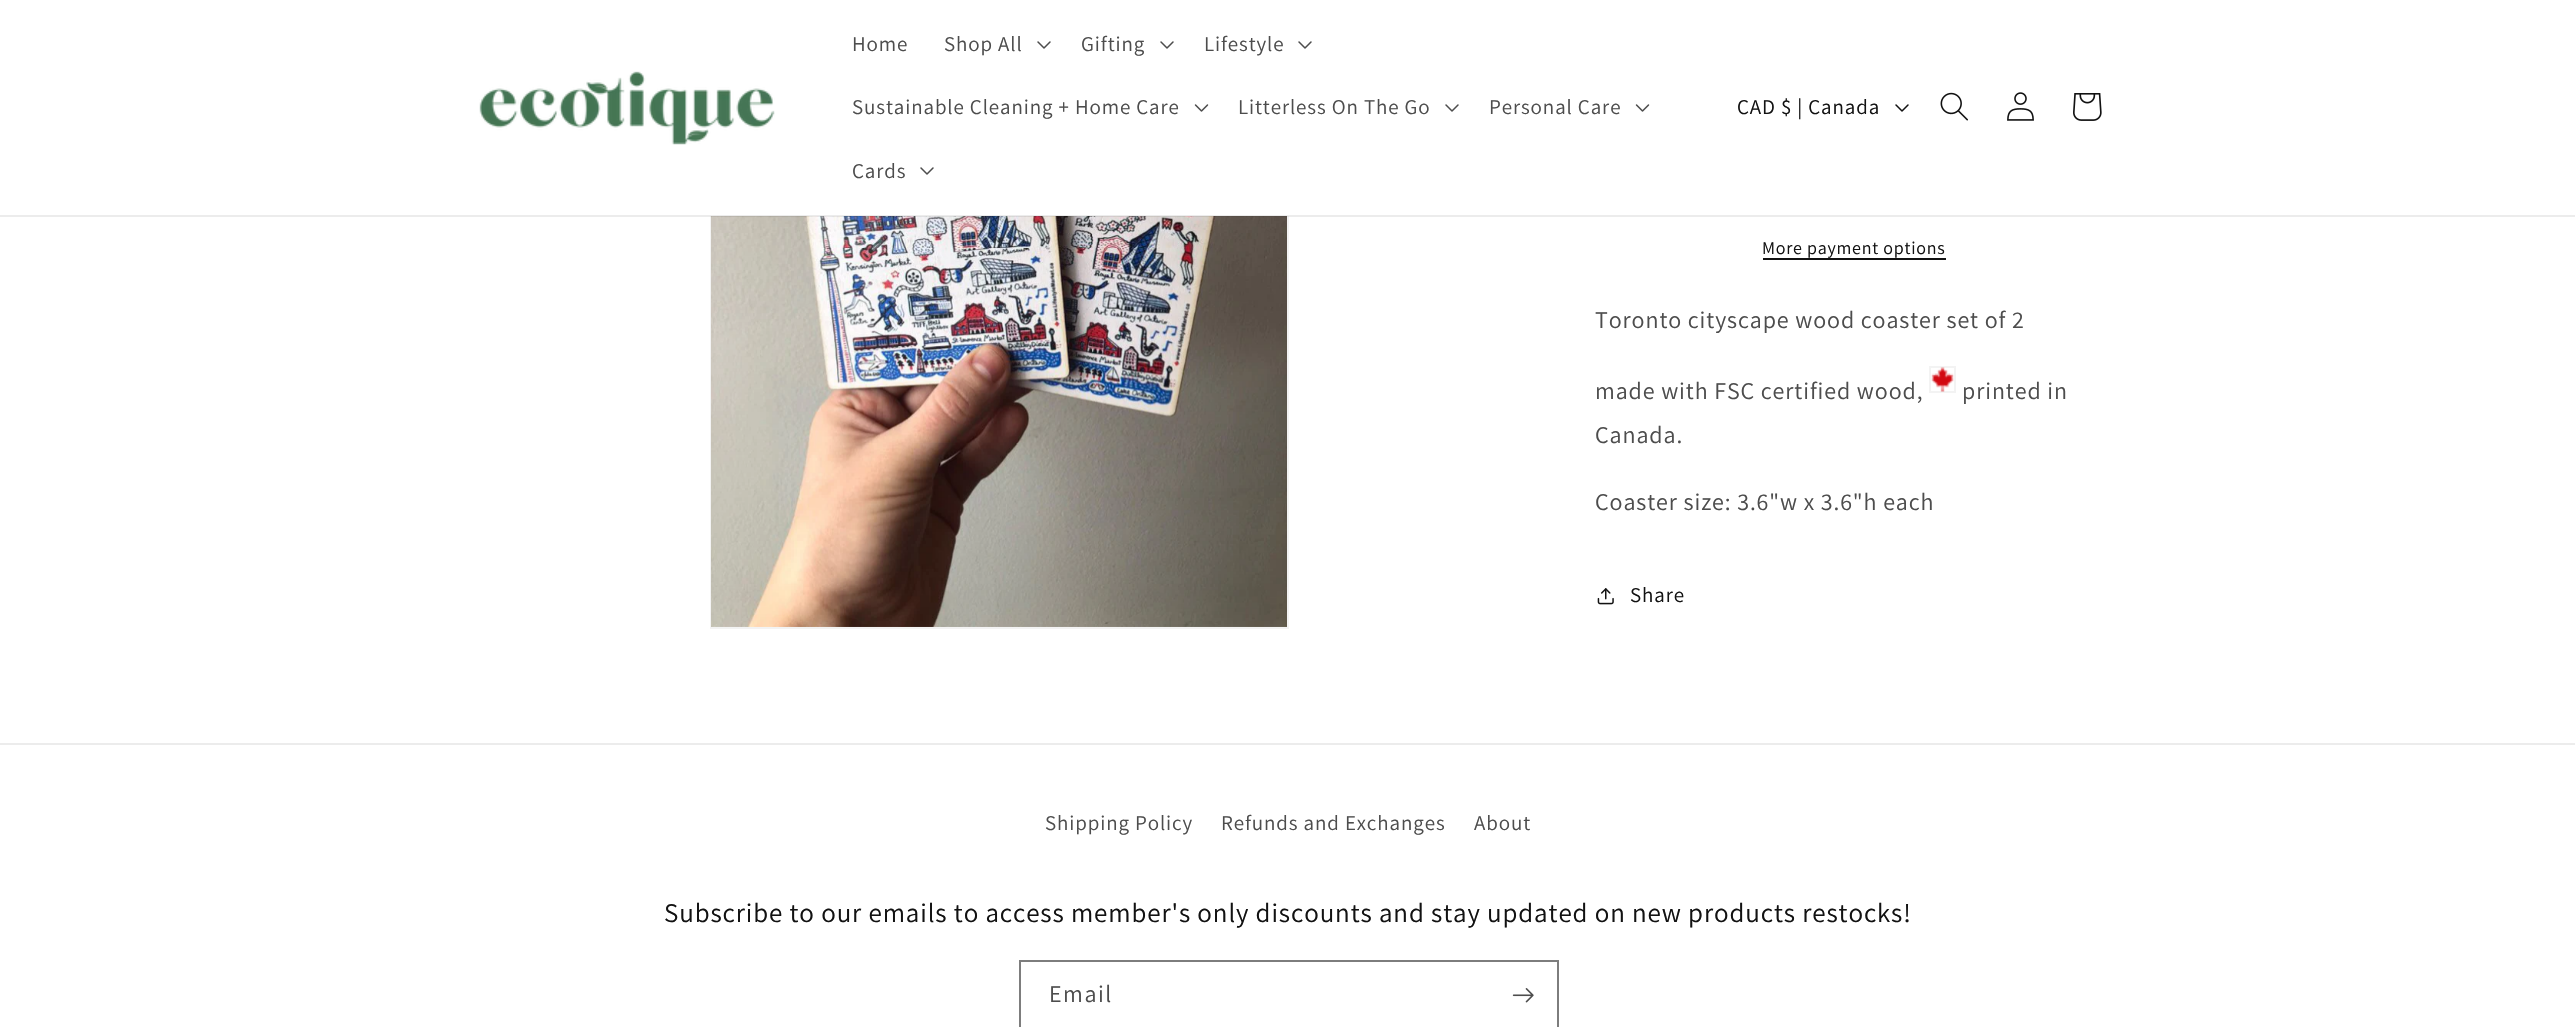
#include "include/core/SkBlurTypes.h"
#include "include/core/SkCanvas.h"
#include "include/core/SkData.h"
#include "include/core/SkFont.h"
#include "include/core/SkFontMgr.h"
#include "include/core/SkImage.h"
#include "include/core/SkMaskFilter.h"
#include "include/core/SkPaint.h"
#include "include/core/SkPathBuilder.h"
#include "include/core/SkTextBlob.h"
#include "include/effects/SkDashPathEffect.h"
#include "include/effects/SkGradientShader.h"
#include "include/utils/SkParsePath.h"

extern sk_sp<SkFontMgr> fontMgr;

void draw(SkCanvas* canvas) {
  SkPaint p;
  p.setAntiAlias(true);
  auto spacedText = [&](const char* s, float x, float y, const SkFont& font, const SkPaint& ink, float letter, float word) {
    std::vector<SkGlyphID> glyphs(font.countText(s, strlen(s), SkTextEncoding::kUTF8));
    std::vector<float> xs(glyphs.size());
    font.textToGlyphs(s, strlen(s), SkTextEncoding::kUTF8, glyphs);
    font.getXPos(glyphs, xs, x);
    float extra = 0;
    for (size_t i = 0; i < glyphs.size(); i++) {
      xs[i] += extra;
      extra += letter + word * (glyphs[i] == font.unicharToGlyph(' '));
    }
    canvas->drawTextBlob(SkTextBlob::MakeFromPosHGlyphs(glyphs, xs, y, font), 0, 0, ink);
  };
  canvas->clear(SK_ColorWHITE);
  p.setStyle(SkPaint::kStroke_Style);
  p.setStrokeWidth(2);
  p.setColor(SkColorSetRGB(243, 243, 243));
  canvas->drawRect(SkRect::MakeLTRB(711, -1, 1288, 628), p);
  p.setStyle(SkPaint::kFill_Style);
  p.setColor(SK_ColorWHITE);
  canvas->drawRect(SkRect::MakeLTRB(710, 0, 1289, 216), p);
  canvas->drawImageRect(SkImages::DeferredFromEncodedData(SkData::MakeFromFileName("images/8.png")), SkRect::MakeLTRB(711, 216, 1287, 627), SkSamplingOptions());
  p.setColor(SkColorSetARGB(20, 18, 18, 18));
  canvas->drawRect(SkRect::MakeLTRB(0, 215, 2575, 217), p);
  canvas->drawImageRect(SkImages::DeferredFromEncodedData(SkData::MakeFromFileName("images/1.png")), SkRect::MakeLTRB(479, 71, 775, 145), SkSamplingOptions());
  canvas->drawImageRect(SkImages::DeferredFromEncodedData(SkData::MakeFromFileName("images/2.png")), SkRect::MakeLTRB(1037, 41, 1051, 49), SkSamplingOptions());
  canvas->drawImageRect(SkImages::DeferredFromEncodedData(SkData::MakeFromFileName("images/2.png")), SkRect::MakeLTRB(1160, 41, 1174, 49), SkSamplingOptions());
  canvas->drawImageRect(SkImages::DeferredFromEncodedData(SkData::MakeFromFileName("images/2.png")), SkRect::MakeLTRB(1298, 41, 1312, 49), SkSamplingOptions());
  canvas->drawImageRect(SkImages::DeferredFromEncodedData(SkData::MakeFromFileName("images/3.png")), SkRect::MakeLTRB(1194, 104, 1209, 112), SkSamplingOptions());
  canvas->drawImageRect(SkImages::DeferredFromEncodedData(SkData::MakeFromFileName("images/2.png")), SkRect::MakeLTRB(1445, 104, 1459, 112), SkSamplingOptions());
  canvas->drawImageRect(SkImages::DeferredFromEncodedData(SkData::MakeFromFileName("images/3.png")), SkRect::MakeLTRB(1635, 104, 1650, 112), SkSamplingOptions());
  canvas->drawImageRect(SkImages::DeferredFromEncodedData(SkData::MakeFromFileName("images/2.png")), SkRect::MakeLTRB(920, 167, 934, 175), SkSamplingOptions());
  canvas->drawImageRect(SkImages::DeferredFromEncodedData(SkData::MakeFromFileName("images/4.png")), SkRect::MakeLTRB(1895, 104, 1909, 112), SkSamplingOptions());
  canvas->drawImageRect(SkImages::DeferredFromEncodedData(SkData::MakeFromFileName("images/5.png")), SkRect::MakeLTRB(1940, 92, 1968, 121), SkSamplingOptions());
  canvas->drawImageRect(SkImages::DeferredFromEncodedData(SkData::MakeFromFileName("images/6.png")), SkRect::MakeLTRB(2007, 92, 2034, 121), SkSamplingOptions());
  canvas->drawImageRect(SkImages::DeferredFromEncodedData(SkData::MakeFromFileName("images/7.png")), SkRect::MakeLTRB(2073, 93, 2102, 121), SkSamplingOptions());
  p.setColor(SkColorSetRGB(18, 18, 18));
  canvas->drawRect(SkRect::MakeLTRB(1763, 258, 1946, 260), p);
  p.setStyle(SkPaint::kStroke_Style);
  p.setColor(SkColorSetRGB(243, 243, 243));
  canvas->drawRect(SkRect::MakeLTRB(1930, 367, 1955, 392), p);
  canvas->drawImageRect(SkImages::DeferredFromEncodedData(SkData::MakeFromFileName("images/9.png")), SkRect::MakeLTRB(1931, 367, 1954, 392), SkSamplingOptions());
  canvas->drawImageRect(SkImages::DeferredFromEncodedData(SkData::MakeFromFileName("images/10.png")), SkRect::MakeLTRB(1597, 588, 1614, 605), SkSamplingOptions());
  p.setStyle(SkPaint::kFill_Style);
  p.setColor(SkColorSetRGB(236, 236, 236));
  canvas->drawRect(SkRect::MakeLTRB(0, 743, 2575, 745), p);
  p.setStyle(SkPaint::kStroke_Style);
  p.setColor(SkColorSetRGB(125, 125, 125));
  canvas->drawRect(SkRect::MakeLTRB(1020, 961, 1558, 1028), p);
  canvas->drawImageRect(SkImages::DeferredFromEncodedData(SkData::MakeFromFileName("images/11.png")), SkRect::MakeLTRB(1512, 988, 1534, 1003), SkSamplingOptions());
  SkFont font1(fontMgr->matchFamilyStyle("Assistant", SkFontStyle::Normal()), 21);
  font1.setSubpixel(true);
  p.setStyle(SkPaint::kFill_Style);
  p.setColor(SkColorSetRGB(77, 77, 77));
  spacedText("Home", 852, 51, font1, p, 0.9f, 0);
  spacedText("Shop All", 944, 51, font1, p, 0.9f, 0);
  spacedText("Gifting", 1081, 51, font1, p, 0.9f, 0);
  spacedText("Lifestyle", 1204, 51, font1, p, 0.9f, 0);
  spacedText("Sustainable Cleaning + Home Care", 852, 114, font1, p, 0.9f, 0);
  spacedText("Litterless On The Go", 1238, 114, font1, p, 0.9f, 0);
  spacedText("Personal Care", 1489, 114, font1, p, 0.9f, 0);
  spacedText("Cards", 852, 178, font1, p, 0.9f, 0);
  p.setColor(SkColorSetRGB(18, 18, 18));
  spacedText("CAD $ | Canada", 1737, 114, font1, p, 0.9f, 0);
  SkFont font2(fontMgr->matchFamilyStyle("Assistant", SkFontStyle::Normal()), 18);
  font2.setSubpixel(true);
  spacedText("More payment options", 1762, 254, font2, p, 0.75f, 0);
  SkFont font3(fontMgr->matchFamilyStyle("Assistant", SkFontStyle::Normal()), 24);
  font3.setSubpixel(true);
  p.setColor(SkColorSetRGB(77, 77, 77));
  spacedText("Toronto cityscape wood coaster set of 2", 1595, 328, font3, p, 0.9f, 0);
  spacedText("made with FSC certified wood,", 1595, 399, font3, p, 0.9f, 0);
  spacedText("printed in", 1962, 399, font3, p, 0.9f, 0);
  spacedText("Canada.", 1595, 443, font3, p, 0.9f, 0);
  spacedText("Coaster size: 3.6\"w x 3.6\"h each", 1595, 510, font3, p, 0.9f, 0);
  p.setColor(SkColorSetRGB(18, 18, 18));
  spacedText("Share", 1630, 602, font1, p, 0.9f, 0);
  p.setColor(SkColorSetRGB(77, 77, 77));
  spacedText("Shipping Policy", 1045, 830, font1, p, 0.9f, 0);
  spacedText("Refunds and Exchanges", 1221, 830, font1, p, 0.9f, 0);
  spacedText("About", 1474, 830, font1, p, 0.9f, 0);
  SkFont font4(fontMgr->matchFamilyStyle("Assistant", SkFontStyle::Normal()), 27);
  font4.setSubpixel(true);
  p.setColor(SkColorSetRGB(18, 18, 18));
  spacedText("Subscribe to our emails to access member's only discounts and stay updated on new products restocks!", 664, 922, font4, p, 0.9f, 0);
  p.setColor(SkColorSetRGB(77, 77, 77));
  spacedText("Email", 1049, 1002, font3, p, 1.5f, 0);
}
